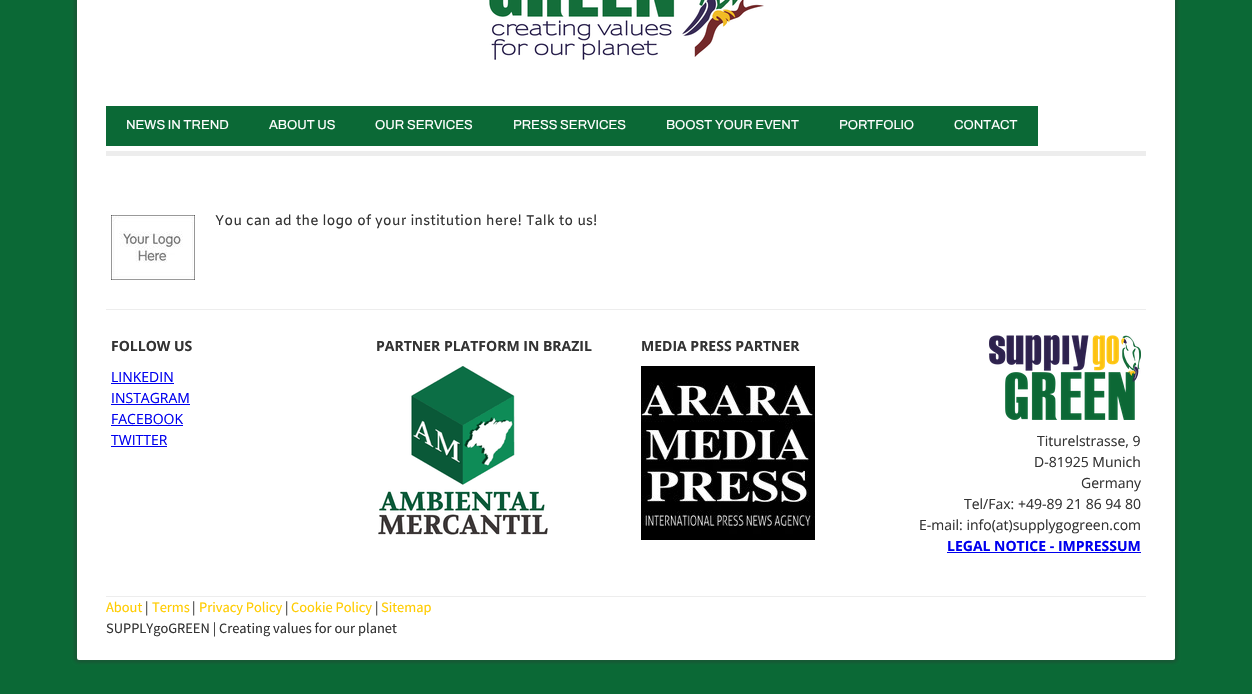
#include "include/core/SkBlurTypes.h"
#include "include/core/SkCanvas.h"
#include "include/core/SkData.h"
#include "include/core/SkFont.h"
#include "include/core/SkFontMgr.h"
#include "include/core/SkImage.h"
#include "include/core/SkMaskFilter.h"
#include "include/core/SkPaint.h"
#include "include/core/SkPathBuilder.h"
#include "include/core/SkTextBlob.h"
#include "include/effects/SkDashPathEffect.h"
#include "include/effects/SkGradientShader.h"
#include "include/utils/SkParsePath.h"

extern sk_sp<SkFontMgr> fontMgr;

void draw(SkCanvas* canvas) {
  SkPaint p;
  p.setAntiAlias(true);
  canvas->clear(SkColorSetRGB(11, 105, 54));
  p.setColor(SkColorSetARGB(77, 51, 51, 51));
  p.setMaskFilter(SkMaskFilter::MakeBlur(kNormal_SkBlurStyle, 1.5f));
  canvas->drawRoundRect(SkRect::MakeLTRB(74, -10, 1178, 663), 5, 5, p);
  p.setMaskFilter(nullptr);
  p.setColor(SK_ColorWHITE);
  canvas->drawRoundRect(SkRect::MakeLTRB(77, -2, 1175, 660), 2, 2, p);
  canvas->drawImageRect(SkImages::DeferredFromEncodedData(SkData::MakeFromFileName("images/1.png")), SkRect::MakeLTRB(488, 0, 764, 60), SkSamplingOptions());
  p.setColor(SkColorSetRGB(237, 237, 237));
  canvas->drawRect(SkRect::MakeLTRB(106, 151, 1146, 156), p);
  p.setColor(SkColorSetRGB(11, 105, 54));
  canvas->drawRect(SkRect::MakeLTRB(106, 106, 1038, 146), p);
  canvas->drawImageRect(SkImages::DeferredFromEncodedData(SkData::MakeFromFileName("images/2.png")), SkRect::MakeLTRB(111, 215, 195, 280), SkSamplingOptions());
  p.setColor(SkColorSetRGB(237, 237, 237));
  canvas->drawRect(SkRect::MakeLTRB(106, 309, 1146, 310), p);
  p.setColor(SkColorSetRGB(0, 0, 238));
  canvas->drawRect(SkRect::MakeLTRB(111, 383, 174, 384), p);
  canvas->drawRect(SkRect::MakeLTRB(111, 404, 190, 405), p);
  canvas->drawRect(SkRect::MakeLTRB(111, 425, 183, 426), p);
  canvas->drawRect(SkRect::MakeLTRB(111, 446, 167, 447), p);
  canvas->drawImageRect(SkImages::DeferredFromEncodedData(SkData::MakeFromFileName("images/3.png")), SkRect::MakeLTRB(378, 366, 548, 535), SkSamplingOptions());
  canvas->drawImageRect(SkImages::DeferredFromEncodedData(SkData::MakeFromFileName("images/4.png")), SkRect::MakeLTRB(641, 366, 815, 540), SkSamplingOptions());
  canvas->drawImageRect(SkImages::DeferredFromEncodedData(SkData::MakeFromFileName("images/5.png")), SkRect::MakeLTRB(989, 335, 1141, 420), SkSamplingOptions());
  canvas->drawRect(SkRect::MakeLTRB(947, 552, 1141, 553), p);
  p.setColor(SkColorSetRGB(237, 237, 237));
  canvas->drawRect(SkRect::MakeLTRB(106, 596, 1146, 597), p);
  SkFont font1(fontMgr->matchFamilyStyle("Archivo", SkFontStyle(600, SkFontStyle::kNormal_Width, SkFontStyle::kUpright_Slant)), 13);
  font1.setSubpixel(true);
  p.setColor(SK_ColorWHITE);
  canvas->drawString("NEWS IN TREND", 126, 129, font1, p);
  canvas->drawString("ABOUT US", 269, 129, font1, p);
  canvas->drawString("OUR SERVICES", 375, 129, font1, p);
  canvas->drawString("PRESS SERVICES", 513, 129, font1, p);
  canvas->drawString("BOOST YOUR EVENT", 666, 129, font1, p);
  canvas->drawString("PORTFOLIO", 839, 129, font1, p);
  canvas->drawString("CONTACT", 954, 129, font1, p);
  SkFont font2(fontMgr->matchFamilyStyle("Amiko", SkFontStyle::Normal()), 14);
  font2.setSubpixel(true);
  p.setColor(SkColorSetRGB(51, 51, 51));
  canvas->drawString("You can ad the logo of your institution here! Talk to us!", 215, 225, font2, p);
  SkFont font3(fontMgr->matchFamilyStyle("Open Sans", SkFontStyle::Bold()), 14);
  font3.setSubpixel(true);
  canvas->drawString("FOLLOW US", 111, 351, font3, p);
  SkFont font4(fontMgr->matchFamilyStyle("Open Sans", SkFontStyle::Normal()), 14);
  font4.setSubpixel(true);
  p.setColor(SkColorSetRGB(0, 0, 238));
  canvas->drawString("LINKEDIN", 111, 382, font4, p);
  canvas->drawString("INSTAGRAM", 111, 403, font4, p);
  canvas->drawString("FACEBOOK", 111, 424, font4, p);
  canvas->drawString("TWITTER", 111, 445, font4, p);
  p.setColor(SkColorSetRGB(51, 51, 51));
  canvas->drawString("PARTNER PLATFORM IN BRAZIL", 376, 351, font3, p);
  canvas->drawString("MEDIA PRESS PARTNER", 641, 351, font3, p);
  canvas->drawString("Titurelstrasse, 9", 1037, 446, font4, p);
  canvas->drawString("D-81925 Munich", 1034, 467, font4, p);
  canvas->drawString("Germany", 1081, 488, font4, p);
  canvas->drawString("Tel/Fax: +49-89 21 86 94 80", 964, 509, font4, p);
  canvas->drawString("E-mail: info(at)supplygogreen.com", 919, 530, font4, p);
  p.setColor(SkColorSetRGB(0, 0, 238));
  canvas->drawString("LEGAL NOTICE - IMPRESSUM", 947, 551, font3, p);
  SkFont font5(fontMgr->matchFamilyStyle("Source Sans Pro", SkFontStyle::Normal()), 14.4f);
  font5.setSubpixel(true);
  p.setColor(SkColorSetRGB(255, 204, 0));
  canvas->drawString("About", 106, 612, font5, p);
  p.setColor(SkColorSetRGB(51, 51, 51));
  canvas->drawString("|", 145, 612, font5, p);
  p.setColor(SkColorSetRGB(255, 204, 0));
  canvas->drawString("Terms", 152, 612, font5, p);
  p.setColor(SkColorSetRGB(51, 51, 51));
  canvas->drawString("|", 192, 612, font5, p);
  p.setColor(SkColorSetRGB(255, 204, 0));
  canvas->drawString("Privacy Policy", 199, 612, font5, p);
  p.setColor(SkColorSetRGB(51, 51, 51));
  canvas->drawString("|", 285, 612, font5, p);
  p.setColor(SkColorSetRGB(255, 204, 0));
  canvas->drawString("Cookie Policy", 291, 612, font5, p);
  p.setColor(SkColorSetRGB(51, 51, 51));
  canvas->drawString("|", 375, 612, font5, p);
  p.setColor(SkColorSetRGB(255, 204, 0));
  canvas->drawString("Sitemap", 381, 612, font5, p);
  p.setColor(SkColorSetRGB(51, 51, 51));
  canvas->drawString("SUPPLYgoGREEN | Creating values for our planet", 106, 633, font5, p);
}
